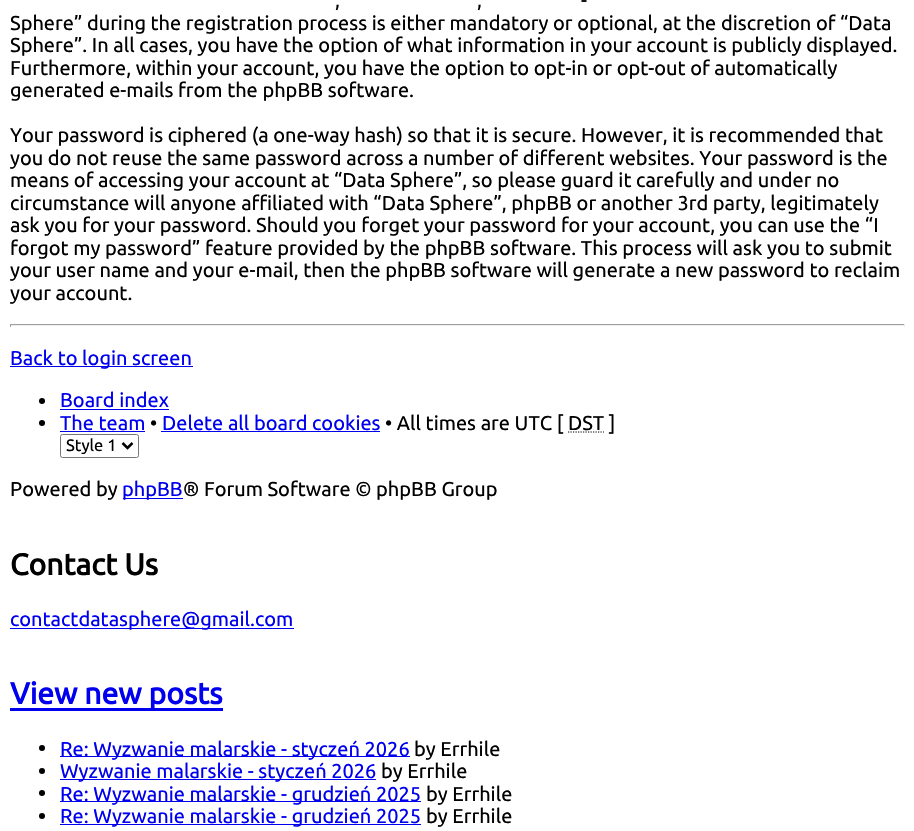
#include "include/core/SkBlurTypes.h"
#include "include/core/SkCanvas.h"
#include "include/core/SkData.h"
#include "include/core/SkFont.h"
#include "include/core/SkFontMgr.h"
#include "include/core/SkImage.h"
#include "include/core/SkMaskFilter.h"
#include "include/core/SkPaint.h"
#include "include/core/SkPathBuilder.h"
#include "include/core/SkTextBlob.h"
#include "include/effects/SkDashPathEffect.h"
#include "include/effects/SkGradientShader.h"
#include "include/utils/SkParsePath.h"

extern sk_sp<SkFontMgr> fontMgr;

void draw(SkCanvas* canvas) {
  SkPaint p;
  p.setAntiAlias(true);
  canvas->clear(SK_ColorWHITE);
  p.setColor(SkColorSetRGB(159, 159, 159));
  canvas->drawRect(SkRect::MakeLTRB(10, 324, 905, 325), p);
  p.setColor(SkColorSetRGB(238, 238, 238));
  canvas->drawRect(SkRect::MakeLTRB(904, 324, 905, 327), p);
  canvas->drawRect(SkRect::MakeLTRB(10, 325, 905, 326), p);
  p.setColor(SkColorSetRGB(159, 159, 159));
  canvas->drawRect(SkRect::MakeLTRB(10, 324, 11, 327), p);
  p.setColor(SkColorSetRGB(0, 0, 238));
  canvas->drawRect(SkRect::MakeLTRB(10, 366, 193, 367), p);
  p.setColor(SK_ColorBLACK);
  canvas->drawCircle(42, 401, 3, p);
  p.setColor(SkColorSetRGB(0, 0, 238));
  canvas->drawRect(SkRect::MakeLTRB(60, 409, 169, 410), p);
  p.setColor(SK_ColorBLACK);
  canvas->drawCircle(42, 423, 3, p);
  p.setColor(SkColorSetRGB(0, 0, 238));
  canvas->drawRect(SkRect::MakeLTRB(60, 431, 145, 432), p);
  canvas->drawRect(SkRect::MakeLTRB(161, 431, 380, 432), p);
  p.setStyle(SkPaint::kStroke_Style);
  p.setStrokeWidth(1.2f);
  p.setColor(SK_ColorBLACK);
  p.setPathEffect(SkDashPathEffect::Make({{1.25f, 1.25f}}, 0));
  canvas->drawPath(SkPathBuilder().moveTo(568, 432).lineTo(604, 432).detach(), p);
  p.setPathEffect(nullptr);
  p.setStrokeWidth(1);
  p.setColor(SkColorSetRGB(118, 118, 118));
  canvas->drawRoundRect(SkRect::MakeLTRB(60.5f, 434.5f, 138.5f, 457.5f), 2, 2, p);
  p.setStrokeWidth(2.5f);
  p.setColor(SK_ColorBLACK);
  canvas->drawPath(SkPathBuilder().moveTo(122.5f, 443).lineTo(127.5f, 448).lineTo(132.5f, 443).detach(), p);
  p.setStyle(SkPaint::kFill_Style);
  p.setColor(SkColorSetRGB(0, 0, 238));
  canvas->drawRect(SkRect::MakeLTRB(123, 498, 183, 499), p);
  canvas->drawRect(SkRect::MakeLTRB(10, 628, 294, 629), p);
  canvas->drawRect(SkRect::MakeLTRB(10, 708, 223, 711), p);
  p.setColor(SK_ColorBLACK);
  canvas->drawCircle(42, 748, 3, p);
  p.setColor(SkColorSetRGB(0, 0, 238));
  canvas->drawRect(SkRect::MakeLTRB(60, 756, 410, 757), p);
  p.setColor(SK_ColorBLACK);
  canvas->drawCircle(42, 771, 3, p);
  p.setColor(SkColorSetRGB(0, 0, 238));
  canvas->drawRect(SkRect::MakeLTRB(60, 779, 376, 780), p);
  p.setColor(SK_ColorBLACK);
  canvas->drawCircle(42, 793, 3, p);
  p.setColor(SkColorSetRGB(0, 0, 238));
  canvas->drawRect(SkRect::MakeLTRB(60, 801, 421, 802), p);
  p.setColor(SK_ColorBLACK);
  canvas->drawCircle(42, 816, 3, p);
  p.setColor(SkColorSetRGB(0, 0, 238));
  canvas->drawRect(SkRect::MakeLTRB(60, 824, 421, 825), p);
  SkFont font1(fontMgr->matchFamilyStyle("Ubuntu", SkFontStyle::Normal()), 20);
  font1.setSubpixel(true);
  p.setColor(SK_ColorBLACK);
  canvas->drawString("-", 581, 7, font1, p);
  canvas->drawString(",", 335, 7, font1, p);
  canvas->drawString(",", 477, 7, font1, p);
  canvas->drawString("Sphere” during the registration process is either mandatory or optional, at the discretion of “Data", 10, 30, font1, p);
  canvas->drawString("Sphere”. In all cases, you have the option of what information in your account is publicly displayed.", 10, 52, font1, p);
  canvas->drawString("Furthermore, within your account, you have the option to opt-in or opt-out of automatically", 10, 75, font1, p);
  canvas->drawString("generated e-mails from the phpBB software.", 10, 97, font1, p);
  canvas->drawString("Your password is ciphered (a one-way hash) so that it is secure. However, it is recommended that", 10, 142, font1, p);
  canvas->drawString("you do not reuse the same password across a number of different websites. Your password is the", 10, 165, font1, p);
  canvas->drawString("means of accessing your account at “Data Sphere”, so please guard it carefully and under no", 10, 187, font1, p);
  canvas->drawString("circumstance will anyone affiliated with “Data Sphere”, phpBB or another 3rd party, legitimately", 10, 210, font1, p);
  canvas->drawString("ask you for your password. Should you forget your password for your account, you can use the “I", 10, 232, font1, p);
  canvas->drawString("forgot my password” feature provided by the phpBB software. This process will ask you to submit", 10, 255, font1, p);
  canvas->drawString("your user name and your e-mail, then the phpBB software will generate a new password to reclaim", 10, 277, font1, p);
  canvas->drawString("your account.", 10, 300, font1, p);
  p.setColor(SkColorSetRGB(0, 0, 238));
  canvas->drawString("Back to login screen", 10, 365, font1, p);
  canvas->drawString("Board index", 60, 407, font1, p);
  canvas->drawString("The team", 60, 430, font1, p);
  p.setColor(SK_ColorBLACK);
  canvas->drawString("•", 150, 430, font1, p);
  p.setColor(SkColorSetRGB(0, 0, 238));
  canvas->drawString("Delete all board cookies", 162, 430, font1, p);
  p.setColor(SK_ColorBLACK);
  canvas->drawString("• All times are UTC [ DST ]", 385, 430, font1, p);
  SkFont font2(fontMgr->matchFamilyStyle("Ubuntu", SkFontStyle::Normal()), 16.5f);
  font2.setSubpixel(true);
  canvas->drawString("Style 1", 66, 451, font2, p);
  canvas->drawString("Powered by", 10, 496, font1, p);
  p.setColor(SkColorSetRGB(0, 0, 238));
  canvas->drawString("phpBB", 122, 496, font1, p);
  p.setColor(SK_ColorBLACK);
  canvas->drawString("® Forum Software © phpBB Group", 183, 496, font1, p);
  SkFont font3(fontMgr->matchFamilyStyle("Ubuntu", SkFontStyle::Bold()), 30);
  font3.setSubpixel(true);
  canvas->drawString("Contact Us", 10, 575, font3, p);
  p.setColor(SkColorSetRGB(0, 0, 238));
  canvas->drawString("contactdatasphere@gmail.com", 10, 626, font1, p);
  canvas->drawString("View new posts", 10, 704, font3, p);
  canvas->drawString("Re: Wyzwanie malarskie - styczeń 2026", 60, 756, font1, p);
  p.setColor(SK_ColorBLACK);
  canvas->drawString("by Errhile", 414, 756, font1, p);
  p.setColor(SkColorSetRGB(0, 0, 238));
  canvas->drawString("Wyzwanie malarskie - styczeń 2026", 60, 778, font1, p);
  p.setColor(SK_ColorBLACK);
  canvas->drawString("by Errhile", 381, 778, font1, p);
  p.setColor(SkColorSetRGB(0, 0, 238));
  canvas->drawString("Re: Wyzwanie malarskie - grudzień 2025", 60, 801, font1, p);
  p.setColor(SK_ColorBLACK);
  canvas->drawString("by Errhile", 426, 801, font1, p);
  p.setColor(SkColorSetRGB(0, 0, 238));
  canvas->drawString("Re: Wyzwanie malarskie - grudzień 2025", 60, 823, font1, p);
  p.setColor(SK_ColorBLACK);
  canvas->drawString("by Errhile", 426, 823, font1, p);
}
